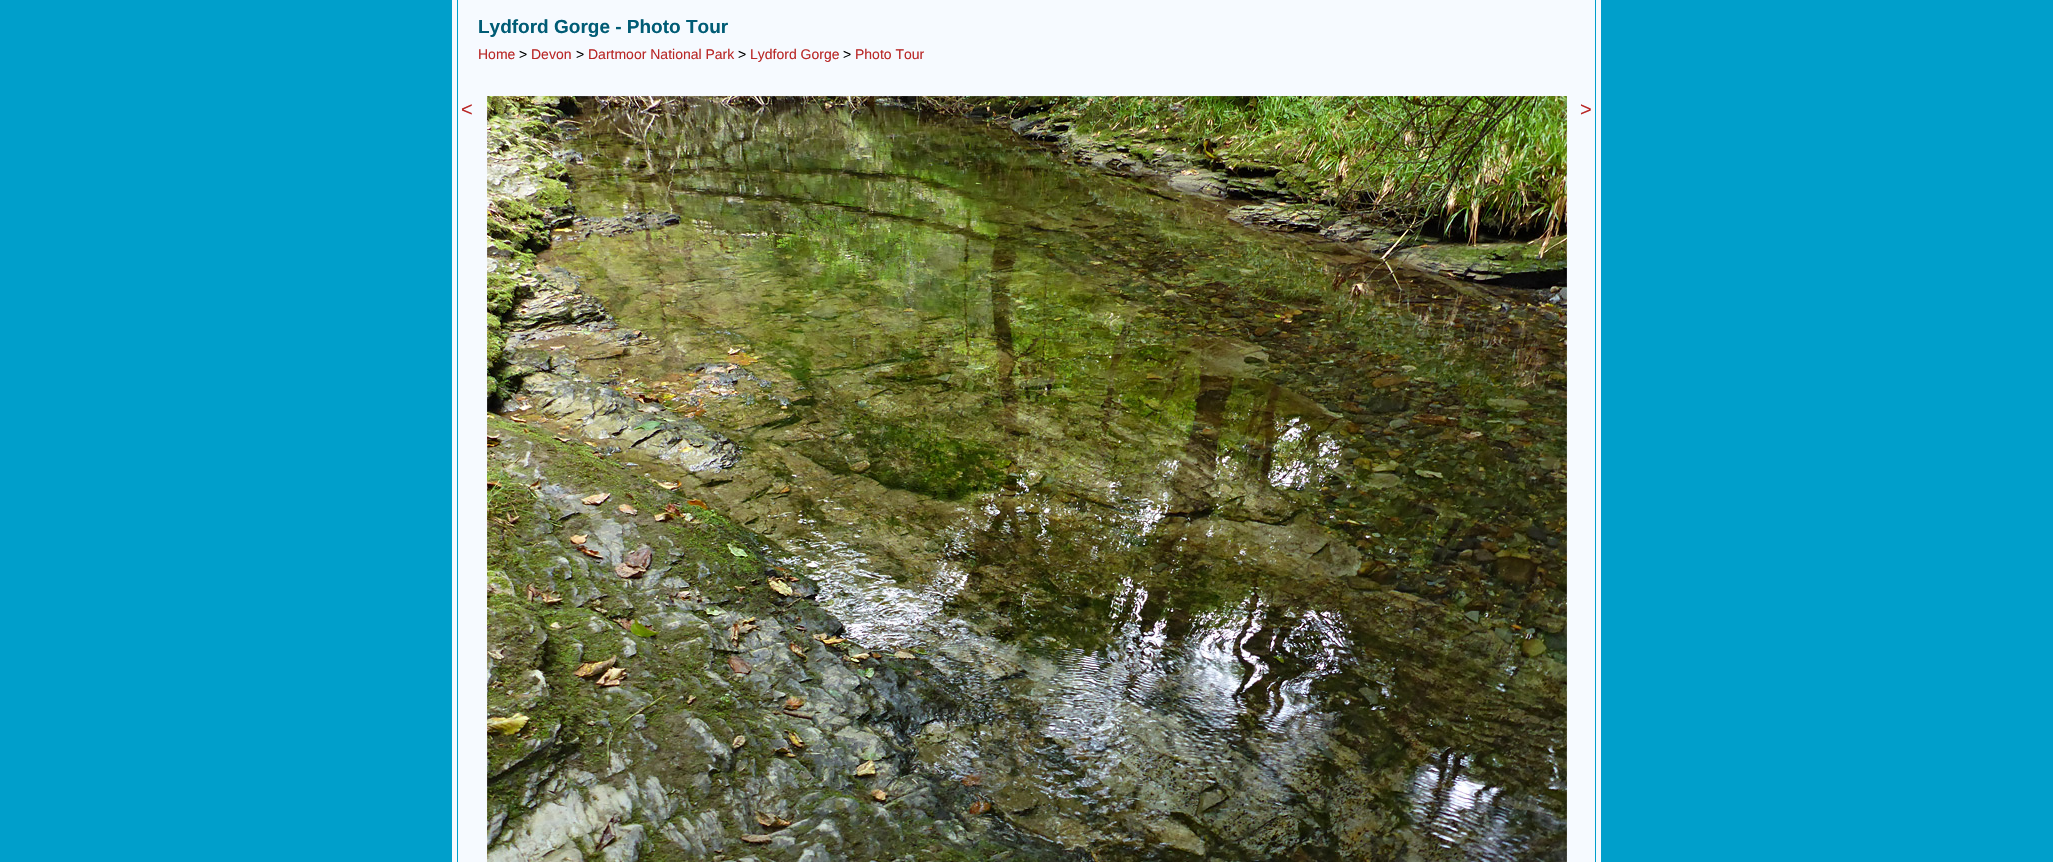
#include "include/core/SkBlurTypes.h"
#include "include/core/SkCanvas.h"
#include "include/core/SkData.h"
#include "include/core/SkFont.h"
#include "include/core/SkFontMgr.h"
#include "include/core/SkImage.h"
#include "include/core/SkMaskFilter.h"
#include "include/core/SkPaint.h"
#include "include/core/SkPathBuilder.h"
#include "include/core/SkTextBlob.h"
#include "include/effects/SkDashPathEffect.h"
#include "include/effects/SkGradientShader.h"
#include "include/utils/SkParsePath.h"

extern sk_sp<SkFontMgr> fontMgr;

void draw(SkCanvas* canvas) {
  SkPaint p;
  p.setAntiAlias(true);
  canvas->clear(SkColorSetRGB(0, 159, 203));
  p.setColor(SkColorSetRGB(246, 250, 255));
  canvas->drawRect(SkRect::MakeLTRB(452, 0, 1601, 862), p);
  p.setColor(SkColorSetRGB(0, 159, 203));
  canvas->drawRect(SkRect::MakeLTRB(1595, 0, 1596, 862), p);
  canvas->drawRect(SkRect::MakeLTRB(457, 0, 458, 862), p);
  canvas->drawImageRect(SkImages::DeferredFromEncodedData(SkData::MakeFromFileName("images/1.png")), SkRect::MakeLTRB(487, 96, 1567, 862), SkSamplingOptions());
  SkFont font1(fontMgr->matchFamilyStyle("Liberation Sans", SkFontStyle::Bold()), 19);
  font1.setSubpixel(true);
  p.setColor(SkColorSetRGB(0, 92, 117));
  canvas->drawString("Lydford Gorge - Photo Tour", 478, 33, font1, p);
  SkFont font2(fontMgr->matchFamilyStyle("Liberation Sans", SkFontStyle::Normal()), 14);
  font2.setSubpixel(true);
  p.setColor(SkColorSetRGB(185, 39, 38));
  canvas->drawString("Home", 478, 59, font2, p);
  p.setColor(SK_ColorBLACK);
  canvas->drawString(">", 519, 59, font2, p);
  p.setColor(SkColorSetRGB(185, 39, 38));
  canvas->drawString("Devon", 531, 59, font2, p);
  p.setColor(SK_ColorBLACK);
  canvas->drawString(">", 576, 59, font2, p);
  p.setColor(SkColorSetRGB(185, 39, 38));
  canvas->drawString("Dartmoor National Park", 588, 59, font2, p);
  p.setColor(SK_ColorBLACK);
  canvas->drawString(">", 738, 59, font2, p);
  p.setColor(SkColorSetRGB(185, 39, 38));
  canvas->drawString("Lydford Gorge", 750, 59, font2, p);
  p.setColor(SK_ColorBLACK);
  canvas->drawString(">", 843, 59, font2, p);
  p.setColor(SkColorSetRGB(185, 39, 38));
  canvas->drawString("Photo Tour", 855, 59, font2, p);
  SkFont font3(fontMgr->matchFamilyStyle("Liberation Sans", SkFontStyle::Normal()), 20);
  font3.setSubpixel(true);
  canvas->drawString("<", 461, 116, font3, p);
  canvas->drawString(">", 1580, 116, font3, p);
}
